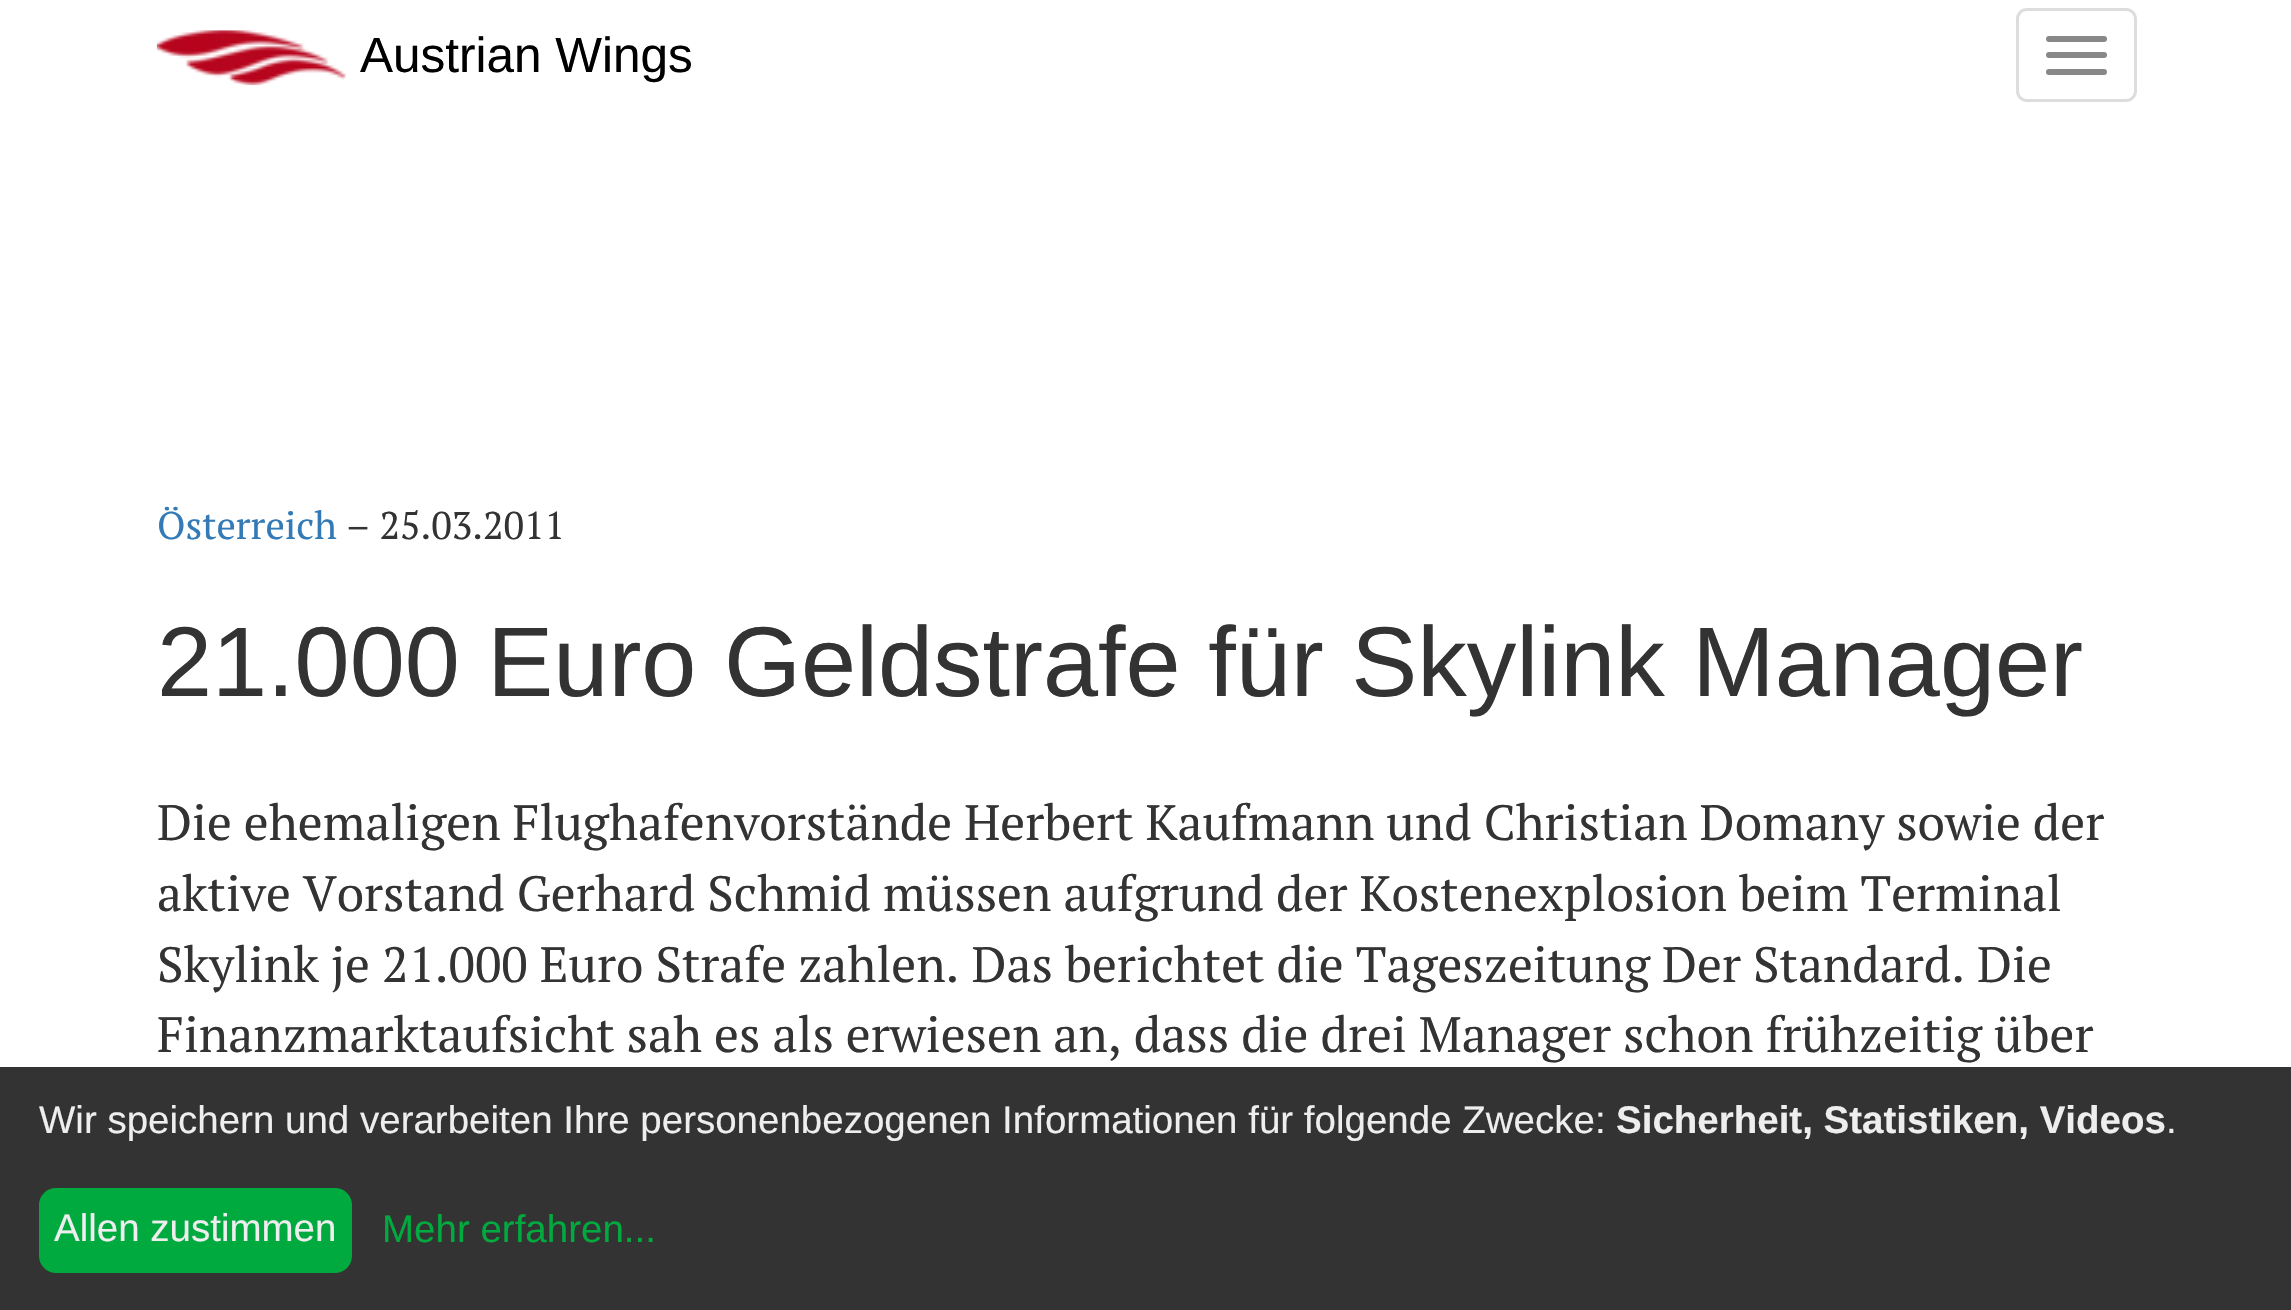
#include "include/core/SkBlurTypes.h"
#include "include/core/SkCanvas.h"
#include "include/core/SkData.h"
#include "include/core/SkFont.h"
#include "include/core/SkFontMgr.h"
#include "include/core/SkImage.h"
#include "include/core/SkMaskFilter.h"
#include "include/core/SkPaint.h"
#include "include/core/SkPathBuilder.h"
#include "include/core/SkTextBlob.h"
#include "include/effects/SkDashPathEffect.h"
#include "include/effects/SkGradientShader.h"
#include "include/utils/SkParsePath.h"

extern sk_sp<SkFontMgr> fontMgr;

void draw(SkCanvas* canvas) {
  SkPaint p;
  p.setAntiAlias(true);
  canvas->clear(SK_ColorWHITE);
  canvas->drawImageRect(SkImages::DeferredFromEncodedData(SkData::MakeFromFileName("images/1.png")), SkRect::MakeLTRB(156, 30, 346, 86), SkSamplingOptions());
  p.setStyle(SkPaint::kStroke_Style);
  p.setStrokeWidth(3);
  p.setColor(SkColorSetRGB(221, 221, 221));
  canvas->drawRoundRect(SkRect::MakeLTRB(2017.5f, 9.5f, 2135.5f, 100.5f), 9.5f, 9.5f, p);
  p.setStyle(SkPaint::kFill_Style);
  p.setColor(SkColorSetRGB(136, 136, 136));
  canvas->drawRoundRect(SkRect::MakeLTRB(2046, 36, 2107, 42), 3, 3, p);
  canvas->drawRoundRect(SkRect::MakeLTRB(2046, 52, 2107, 58), 3, 3, p);
  canvas->drawRoundRect(SkRect::MakeLTRB(2046, 69, 2107, 75), 3, 3, p);
  p.setColor(SkColorSetRGB(51, 51, 51));
  canvas->drawRect(SkRect::MakeLTRB(0, 1067, 2291, 1310), p);
  p.setColor(SkColorSetRGB(0, 170, 62));
  canvas->drawRoundRect(SkRect::MakeLTRB(39, 1188, 352, 1273), 17, 17, p);
  SkFont font1(fontMgr->matchFamilyStyle("Liberation Sans", SkFontStyle::Normal()), 49.5f);
  font1.setSubpixel(true);
  p.setColor(SK_ColorBLACK);
  canvas->drawString("Austrian Wings", 360, 72, font1, p);
  SkFont font2(fontMgr->matchFamilyStyle("PT Serif", SkFontStyle::Normal()), 38.5f);
  font2.setSubpixel(true);
  p.setColor(SkColorSetRGB(51, 122, 183));
  canvas->drawString("Österreich", 157, 539, font2, p);
  p.setColor(SkColorSetRGB(51, 51, 51));
  canvas->drawString("– 25.03.2011", 346, 539, font2, p);
  SkFont font3(fontMgr->matchFamilyStyle("Liberation Sans", SkFontStyle::Normal()), 99);
  font3.setSubpixel(true);
  canvas->drawString("21.000 Euro Geldstrafe für Skylink Manager", 157, 696, font3, p);
  SkFont font4(fontMgr->matchFamilyStyle("PT Serif", SkFontStyle::Normal()), 49.5f);
  font4.setSubpixel(true);
  canvas->drawString("Die ehemaligen Flughafenvorstände Herbert Kaufmann und Christian Domany sowie der", 157, 840, font4, p);
  canvas->drawString("aktive Vorstand Gerhard Schmid müssen aufgrund der Kostenexplosion beim Terminal", 157, 911, font4, p);
  canvas->drawString("Skylink je 21.000 Euro Strafe zahlen. Das berichtet die Tageszeitung Der Standard. Die", 157, 982, font4, p);
  canvas->drawString("Finanzmarktaufsicht sah es als erwiesen an, dass die drei Manager schon frühzeitig über", 157, 1052, font4, p);
  SkFont font5(fontMgr->matchFamilyStyle("Liberation Sans", SkFontStyle::Normal()), 38.5f);
  font5.setSubpixel(true);
  p.setColor(SkColorSetRGB(238, 238, 238));
  canvas->drawString("Wir speichern und verarbeiten Ihre personenbezogenen Informationen für folgende Zwecke:", 39, 1133, font5, p);
  SkFont font6(fontMgr->matchFamilyStyle("Liberation Sans", SkFontStyle::Bold()), 38.5f);
  font6.setSubpixel(true);
  canvas->drawString("Sicherheit, Statistiken, Videos", 1616, 1133, font6, p);
  canvas->drawString(".", 2166, 1133, font5, p);
  canvas->drawString("Allen zustimmen", 54, 1241, font5, p);
  p.setColor(SkColorSetRGB(0, 170, 62));
  canvas->drawString("Mehr erfahren...", 382, 1242, font5, p);
}
